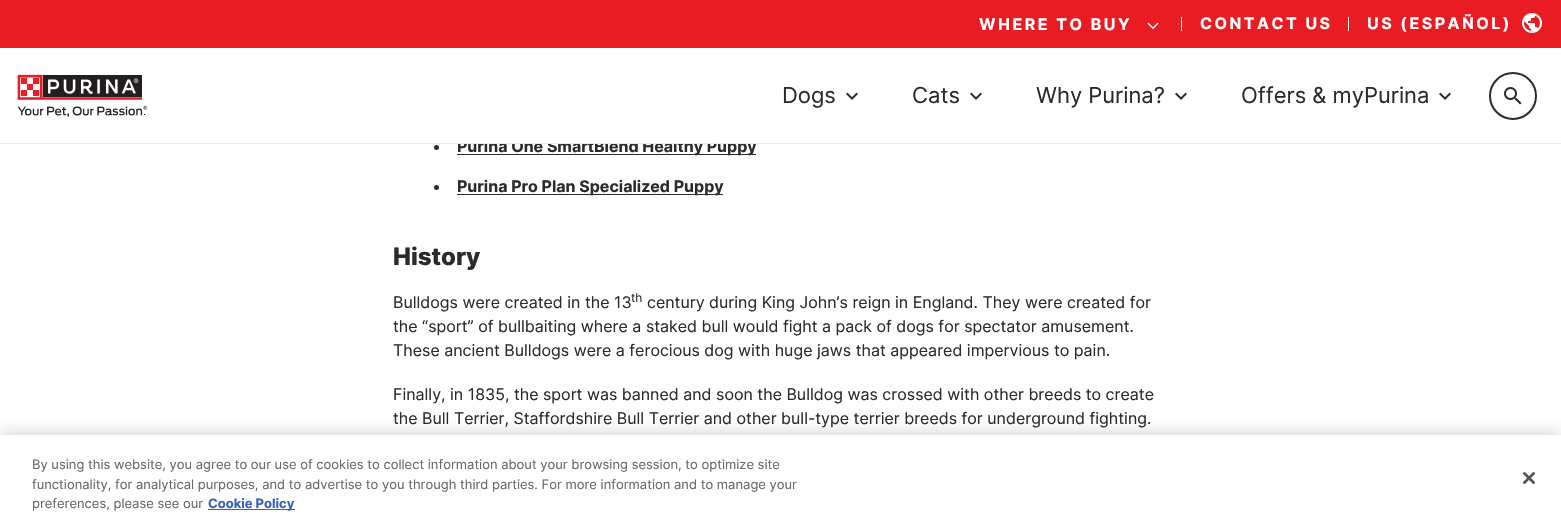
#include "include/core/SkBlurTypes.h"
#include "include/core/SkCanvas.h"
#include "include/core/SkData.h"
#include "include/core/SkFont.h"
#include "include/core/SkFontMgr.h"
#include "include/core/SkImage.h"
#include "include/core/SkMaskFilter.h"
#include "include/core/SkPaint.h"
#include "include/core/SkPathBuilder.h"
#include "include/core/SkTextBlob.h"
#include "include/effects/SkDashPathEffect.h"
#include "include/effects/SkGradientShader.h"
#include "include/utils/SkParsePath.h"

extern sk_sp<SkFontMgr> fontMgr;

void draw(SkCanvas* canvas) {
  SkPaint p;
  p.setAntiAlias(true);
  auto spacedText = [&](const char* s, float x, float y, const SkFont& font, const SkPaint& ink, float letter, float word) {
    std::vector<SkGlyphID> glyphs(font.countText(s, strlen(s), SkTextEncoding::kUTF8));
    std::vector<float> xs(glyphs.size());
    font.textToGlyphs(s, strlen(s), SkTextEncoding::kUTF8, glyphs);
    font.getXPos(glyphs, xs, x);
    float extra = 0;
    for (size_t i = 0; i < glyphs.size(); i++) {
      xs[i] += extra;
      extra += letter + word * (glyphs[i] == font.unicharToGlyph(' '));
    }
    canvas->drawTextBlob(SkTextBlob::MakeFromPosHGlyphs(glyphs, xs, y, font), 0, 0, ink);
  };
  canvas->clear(SK_ColorWHITE);
  p.setColor(SkColorSetRGB(233, 28, 36));
  canvas->drawRect(SkRect::MakeLTRB(0, 0, 1561, 48), p);
  canvas->drawImageRect(SkImages::DeferredFromEncodedData(SkData::MakeFromFileName("images/1.png")), SkRect::MakeLTRB(1147, 22, 1159, 29), SkSamplingOptions());
  p.setColor(SK_ColorWHITE);
  canvas->drawRect(SkRect::MakeLTRB(1181, 17, 1182, 31), p);
  canvas->drawRect(SkRect::MakeLTRB(1348, 17, 1349, 31), p);
  canvas->drawImageRect(SkImages::DeferredFromEncodedData(SkData::MakeFromFileName("images/2.png")), SkRect::MakeLTRB(1522, 13, 1542, 33), SkSamplingOptions());
  canvas->drawImageRect(SkImages::DeferredFromEncodedData(SkData::MakeFromFileName("images/3.png")), SkRect::MakeLTRB(17, 74, 148, 117), SkSamplingOptions());
  canvas->drawImageRect(SkImages::DeferredFromEncodedData(SkData::MakeFromFileName("images/4.png")), SkRect::MakeLTRB(846, 92, 858, 100), SkSamplingOptions());
  canvas->drawImageRect(SkImages::DeferredFromEncodedData(SkData::MakeFromFileName("images/4.png")), SkRect::MakeLTRB(970, 92, 982, 100), SkSamplingOptions());
  canvas->drawImageRect(SkImages::DeferredFromEncodedData(SkData::MakeFromFileName("images/4.png")), SkRect::MakeLTRB(1175, 92, 1187, 100), SkSamplingOptions());
  canvas->drawImageRect(SkImages::DeferredFromEncodedData(SkData::MakeFromFileName("images/4.png")), SkRect::MakeLTRB(1439, 92, 1451, 100), SkSamplingOptions());
  p.setStyle(SkPaint::kStroke_Style);
  p.setStrokeWidth(2);
  p.setColor(SkColorSetRGB(43, 43, 43));
  canvas->drawCircle(1513, 96, 23, p);
  canvas->drawImageRect(SkImages::DeferredFromEncodedData(SkData::MakeFromFileName("images/5.png")), SkRect::MakeLTRB(1504, 87, 1522, 105), SkSamplingOptions());
  p.setStyle(SkPaint::kFill_Style);
  canvas->drawCircle(436.5f, 147.5f, 2.5f, p);
  canvas->drawRect(SkRect::MakeLTRB(457, 154, 756, 155), p);
  canvas->drawCircle(436.5f, 187.5f, 2.5f, p);
  canvas->drawRect(SkRect::MakeLTRB(457, 194, 723, 195), p);
  p.setColor(SkColorSetARGB(51, 0, 0, 0));
  p.setMaskFilter(SkMaskFilter::MakeBlur(kNormal_SkBlurStyle, 9));
  canvas->drawRect(SkRect::MakeLTRB(0, 435, 1561, 524), p);
  p.setMaskFilter(nullptr);
  p.setColor(SK_ColorWHITE);
  canvas->drawRect(SkRect::MakeLTRB(0, 435, 1561, 524), p);
  p.setColor(SkColorSetRGB(56, 96, 190));
  canvas->drawRect(SkRect::MakeLTRB(208, 509, 295, 510), p);
  canvas->drawImageRect(SkImages::DeferredFromEncodedData(SkData::MakeFromFileName("images/6.png")), SkRect::MakeLTRB(1523, 472, 1535, 484), SkSamplingOptions());
  SkFont font1(fontMgr->matchFamilyStyle("Inter", SkFontStyle::Bold()), 16);
  font1.setSubpixel(true);
  p.setColor(SK_ColorWHITE);
  spacedText("WHERE TO BUY", 979, 30, font1, p, 2.5f, 0);
  spacedText("CONTACT US", 1200, 29, font1, p, 2.5f, 0);
  spacedText("US (ESPAÑOL)", 1367, 29, font1, p, 2.5f, 0);
  SkFont font2(fontMgr->matchFamilyStyle("Inter", SkFontStyle::Normal()), 22);
  font2.setSubpixel(true);
  p.setColor(SkColorSetRGB(43, 43, 43));
  canvas->drawString("Dogs", 782, 103, font2, p);
  canvas->drawString("Cats", 912, 103, font2, p);
  canvas->drawString("Why Purina?", 1036, 103, font2, p);
  canvas->drawString("Offers & myPurina", 1241, 103, font2, p);
  canvas->drawString("Purina One SmartBlend Healthy Puppy", 457, 152, font1, p);
  p.setColor(SkColorSetRGB(238, 238, 238));
  canvas->drawRect(SkRect::MakeLTRB(0, 143, 1561, 144), p);
  p.setColor(SK_ColorWHITE);
  canvas->drawRect(SkRect::MakeLTRB(457, 139, 716, 143), p);
  p.setColor(SkColorSetRGB(43, 43, 43));
  canvas->drawString("Purina Pro Plan Specialized Puppy", 457, 192, font1, p);
  SkFont font3(fontMgr->matchFamilyStyle("Inter", SkFontStyle(800, SkFontStyle::kNormal_Width, SkFontStyle::kUpright_Slant)), 24);
  font3.setSubpixel(true);
  canvas->drawString("History", 393, 265, font3, p);
  SkFont font4(fontMgr->matchFamilyStyle("Inter", SkFontStyle::Normal()), 16);
  font4.setSubpixel(true);
  canvas->drawString("Bulldogs were created in the 13", 393, 308, font4, p);
  SkFont font5(fontMgr->matchFamilyStyle("Inter", SkFontStyle::Normal()), 12);
  font5.setSubpixel(true);
  canvas->drawString("th", 631, 302, font5, p);
  canvas->drawString("century during King John’s reign in England. They were created for", 647, 308, font4, p);
  canvas->drawString("the “sport” of bullbaiting where a staked bull would fight a pack of dogs for spectator amusement.", 393, 332, font4, p);
  canvas->drawString("These ancient Bulldogs were a ferocious dog with huge jaws that appeared impervious to pain.", 393, 356, font4, p);
  canvas->drawString("Finally, in 1835, the sport was banned and soon the Bulldog was crossed with other breeds to create", 393, 400, font4, p);
  canvas->drawString("the Bull Terrier, Staffordshire Bull Terrier and other bull-type terrier breeds for underground fighting.", 393, 424, font4, p);
  SkFont font6(fontMgr->matchFamilyStyle("Inter", SkFontStyle::Normal()), 13);
  font6.setSubpixel(true);
  p.setColor(SkColorSetRGB(105, 105, 105));
  canvas->drawString("By using this website, you agree to our use of cookies to collect information about your browsing session, to optimize site", 32, 469, font6, p);
  canvas->drawString("functionality, for analytical purposes, and to advertise to you through third parties. For more information and to manage your", 32, 489, font6, p);
  canvas->drawString("preferences, please see our", 32, 508, font6, p);
  SkFont font7(fontMgr->matchFamilyStyle("Inter", SkFontStyle::Bold()), 13);
  font7.setSubpixel(true);
  p.setColor(SkColorSetRGB(56, 96, 190));
  canvas->drawString("Cookie Policy", 208, 508, font7, p);
}
